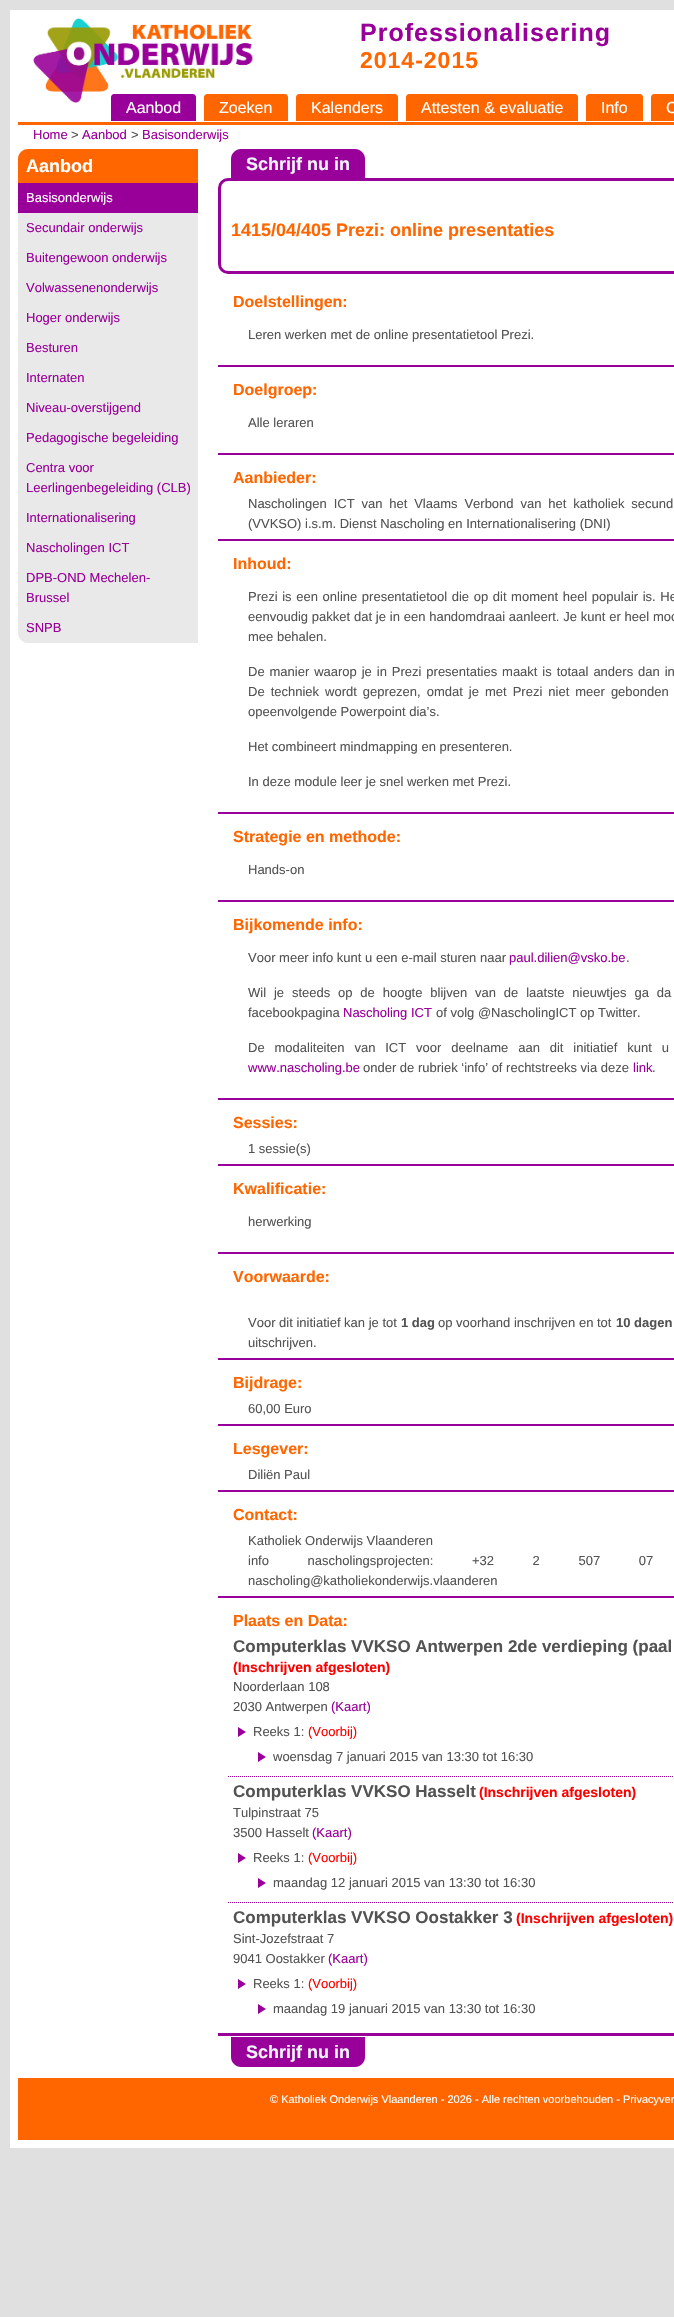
#include "include/core/SkBlurTypes.h"
#include "include/core/SkCanvas.h"
#include "include/core/SkData.h"
#include "include/core/SkFont.h"
#include "include/core/SkFontMgr.h"
#include "include/core/SkImage.h"
#include "include/core/SkMaskFilter.h"
#include "include/core/SkPaint.h"
#include "include/core/SkPathBuilder.h"
#include "include/core/SkTextBlob.h"
#include "include/effects/SkDashPathEffect.h"
#include "include/effects/SkGradientShader.h"
#include "include/utils/SkParsePath.h"

extern sk_sp<SkFontMgr> fontMgr;

void draw(SkCanvas* canvas) {
  SkPaint p;
  p.setAntiAlias(true);
  auto spacedText = [&](const char* s, float x, float y, const SkFont& font, const SkPaint& ink, float letter, float word) {
    std::vector<SkGlyphID> glyphs(font.countText(s, strlen(s), SkTextEncoding::kUTF8));
    std::vector<float> xs(glyphs.size());
    font.textToGlyphs(s, strlen(s), SkTextEncoding::kUTF8, glyphs);
    font.getXPos(glyphs, xs, x);
    float extra = 0;
    for (size_t i = 0; i < glyphs.size(); i++) {
      xs[i] += extra;
      extra += letter + word * (glyphs[i] == font.unicharToGlyph(' '));
    }
    canvas->drawTextBlob(SkTextBlob::MakeFromPosHGlyphs(glyphs, xs, y, font), 0, 0, ink);
  };
  canvas->clear(SkColorSetRGB(224, 224, 224));
  p.setColor(SK_ColorWHITE);
  canvas->drawRect(SkRect::MakeLTRB(10, 10, 674, 2148), p);
  canvas->drawImageRect(SkImages::DeferredFromEncodedData(SkData::MakeFromFileName("images/1.png")), SkRect::MakeLTRB(33, 18, 253, 103), SkSamplingOptions());
  p.setColor(SkColorSetRGB(255, 102, 0));
  canvas->drawRect(SkRect::MakeLTRB(18, 122, 674, 125), p);
  p.setColor(SkColorSetRGB(153, 0, 153));
  canvas->drawPath(SkPathBuilder().moveTo(114, 94).lineTo(193, 94).cubicTo(194.5f, 94, 196, 95.5f, 196, 97).lineTo(196, 121).lineTo(111, 121).lineTo(111, 97).cubicTo(111, 95.5f, 112.5f, 94, 114, 94).close().detach(), p);
  p.setColor(SkColorSetRGB(255, 102, 0));
  canvas->drawPath(SkPathBuilder().moveTo(207, 94).lineTo(285, 94).cubicTo(286.5f, 94, 288, 95.5f, 288, 97).lineTo(288, 121).lineTo(204, 121).lineTo(204, 97).cubicTo(204, 95.5f, 205.5f, 94, 207, 94).close().detach(), p);
  canvas->drawPath(SkPathBuilder().moveTo(299, 94).lineTo(395, 94).cubicTo(396.5f, 94, 398, 95.5f, 398, 97).lineTo(398, 121).lineTo(296, 121).lineTo(296, 97).cubicTo(296, 95.5f, 297.5f, 94, 299, 94).close().detach(), p);
  canvas->drawPath(SkPathBuilder().moveTo(409, 94).lineTo(575, 94).cubicTo(576.5f, 94, 578, 95.5f, 578, 97).lineTo(578, 121).lineTo(406, 121).lineTo(406, 97).cubicTo(406, 95.5f, 407.5f, 94, 409, 94).close().detach(), p);
  canvas->drawPath(SkPathBuilder().moveTo(589, 94).lineTo(640, 94).cubicTo(641.5f, 94, 643, 95.5f, 643, 97).lineTo(643, 121).lineTo(586, 121).lineTo(586, 97).cubicTo(586, 95.5f, 587.5f, 94, 589, 94).close().detach(), p);
  canvas->drawPath(SkPathBuilder().moveTo(654, 94).lineTo(674, 94).cubicTo(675.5f, 94, 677, 95.5f, 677, 97).lineTo(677, 121).lineTo(651, 121).lineTo(651, 97).cubicTo(651, 95.5f, 652.5f, 94, 654, 94).close().detach(), p);
  p.setColor(SkColorSetRGB(233, 233, 233));
  canvas->drawPath(SkPathBuilder().moveTo(28, 149).lineTo(198, 149).lineTo(198, 643).lineTo(28, 643).cubicTo(22.5f, 643, 18, 638.5f, 18, 633).lineTo(18, 159).cubicTo(18, 153.5f, 22.5f, 149, 28, 149).close().detach(), p);
  p.setColor(SkColorSetRGB(255, 102, 0));
  canvas->drawPath(SkPathBuilder().moveTo(28, 149).lineTo(198, 149).lineTo(198, 183).lineTo(18, 183).lineTo(18, 159).cubicTo(18, 153.5f, 22.5f, 149, 28, 149).close().detach(), p);
  p.setColor(SkColorSetRGB(153, 0, 153));
  canvas->drawRect(SkRect::MakeLTRB(18, 183, 198, 213), p);
  p.setStyle(SkPaint::kStroke_Style);
  p.setStrokeWidth(3);
  canvas->drawRoundRect(SkRect::MakeLTRB(219.5f, 179.5f, 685.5f, 272.5f), 8.5f, 8.5f, p);
  p.setStyle(SkPaint::kFill_Style);
  canvas->drawPath(SkPathBuilder().moveTo(241, 149).lineTo(355, 149).cubicTo(360.5f, 149, 365, 153.5f, 365, 159).lineTo(365, 179).lineTo(231, 179).lineTo(231, 159).cubicTo(231, 153.5f, 235.5f, 149, 241, 149).close().detach(), p);
  canvas->drawRect(SkRect::MakeLTRB(218, 2033, 674, 2036), p);
  canvas->drawRect(SkRect::MakeLTRB(218, 365, 674, 367), p);
  canvas->drawRect(SkRect::MakeLTRB(218, 453, 674, 455), p);
  canvas->drawRect(SkRect::MakeLTRB(218, 539, 674, 541), p);
  canvas->drawRect(SkRect::MakeLTRB(218, 812, 674, 814), p);
  canvas->drawRect(SkRect::MakeLTRB(218, 900, 674, 902), p);
  canvas->drawRect(SkRect::MakeLTRB(218, 1098, 674, 1100), p);
  canvas->drawRect(SkRect::MakeLTRB(218, 1164, 674, 1166), p);
  canvas->drawRect(SkRect::MakeLTRB(218, 1252, 674, 1254), p);
  canvas->drawRect(SkRect::MakeLTRB(218, 1358, 674, 1360), p);
  canvas->drawRect(SkRect::MakeLTRB(218, 1424, 674, 1426), p);
  canvas->drawRect(SkRect::MakeLTRB(218, 1490, 674, 1492), p);
  canvas->drawRect(SkRect::MakeLTRB(218, 1596, 674, 1598), p);
  p.setStyle(SkPaint::kStroke_Style);
  p.setStrokeWidth(1);
  p.setPathEffect(SkDashPathEffect::Make({{1, 1}}, 0));
  canvas->drawPath(SkPathBuilder().moveTo(228, 1776.5f).lineTo(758, 1776.5f).detach(), p);
  p.setPathEffect(nullptr);
  p.setPathEffect(SkDashPathEffect::Make({{1, 1}}, 0));
  canvas->drawPath(SkPathBuilder().moveTo(228, 1902.5f).lineTo(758, 1902.5f).detach(), p);
  p.setPathEffect(nullptr);
  p.setStyle(SkPaint::kFill_Style);
  canvas->drawPath(SkPathBuilder().moveTo(231, 2037).lineTo(365, 2037).lineTo(365, 2057).cubicTo(365, 2062.5f, 360.5f, 2067, 355, 2067).lineTo(241, 2067).cubicTo(235.5f, 2067, 231, 2062.5f, 231, 2057).close().detach(), p);
  p.setColor(SkColorSetRGB(255, 102, 0));
  canvas->drawRect(SkRect::MakeLTRB(18, 2078, 674, 2140), p);
  SkFont font1(fontMgr->matchFamilyStyle("Liberation Sans", SkFontStyle::Bold()), 25);
  font1.setSubpixel(true);
  p.setColor(SkColorSetRGB(153, 0, 153));
  spacedText("Professionalisering", 360, 41, font1, p, 1, 0);
  SkFont font2(fontMgr->matchFamilyStyle("Liberation Sans", SkFontStyle::Bold()), 23);
  font2.setSubpixel(true);
  p.setColor(SkColorSetRGB(255, 102, 0));
  spacedText("2014-2015", 360, 68, font2, p, 1, 0);
  SkFont font3(fontMgr->matchFamilyStyle("Liberation Sans", SkFontStyle::Normal()), 16);
  font3.setSubpixel(true);
  p.setColor(SK_ColorWHITE);
  canvas->drawString("Aanbod", 126, 113, font3, p);
  canvas->drawString("Zoeken", 219, 113, font3, p);
  canvas->drawString("Kalenders", 311, 113, font3, p);
  canvas->drawString("Attesten & evaluatie", 421, 113, font3, p);
  canvas->drawString("Info", 601, 113, font3, p);
  canvas->drawString("C", 666, 113, font3, p);
  SkFont font4(fontMgr->matchFamilyStyle("Liberation Sans", SkFontStyle::Normal()), 13);
  font4.setSubpixel(true);
  p.setColor(SkColorSetRGB(153, 0, 153));
  canvas->drawString("Home", 33, 139, font4, p);
  p.setColor(SkColorSetRGB(83, 83, 83));
  canvas->drawString(">", 71, 139, font4, p);
  p.setColor(SkColorSetRGB(153, 0, 153));
  canvas->drawString("Aanbod", 82, 139, font4, p);
  p.setColor(SkColorSetRGB(83, 83, 83));
  canvas->drawString(">", 131, 139, font4, p);
  p.setColor(SkColorSetRGB(153, 0, 153));
  canvas->drawString("Basisonderwijs", 142, 139, font4, p);
  SkFont font5(fontMgr->matchFamilyStyle("Liberation Sans", SkFontStyle::Bold()), 18);
  font5.setSubpixel(true);
  p.setColor(SK_ColorWHITE);
  canvas->drawString("Aanbod", 26, 172, font5, p);
  canvas->drawString("Basisonderwijs", 26, 202, font4, p);
  p.setColor(SkColorSetRGB(153, 0, 153));
  canvas->drawString("Secundair onderwijs", 26, 232, font4, p);
  canvas->drawString("Buitengewoon onderwijs", 26, 262, font4, p);
  canvas->drawString("Volwassenenonderwijs", 26, 292, font4, p);
  canvas->drawString("Hoger onderwijs", 26, 322, font4, p);
  canvas->drawString("Besturen", 26, 352, font4, p);
  canvas->drawString("Internaten", 26, 382, font4, p);
  canvas->drawString("Niveau-overstijgend", 26, 412, font4, p);
  canvas->drawString("Pedagogische begeleiding", 26, 442, font4, p);
  canvas->drawString("Centra voor", 26, 472, font4, p);
  canvas->drawString("Leerlingenbegeleiding (CLB)", 26, 492, font4, p);
  canvas->drawString("Internationalisering", 26, 522, font4, p);
  canvas->drawString("Nascholingen ICT", 26, 552, font4, p);
  canvas->drawString("DPB-OND Mechelen-", 26, 582, font4, p);
  canvas->drawString("Brussel", 26, 602, font4, p);
  canvas->drawString("SNPB", 26, 632, font4, p);
  p.setColor(SkColorSetRGB(241, 246, 254));
  canvas->drawString("Schrijf nu in", 246, 170, font5, p);
  p.setColor(SkColorSetRGB(255, 102, 0));
  canvas->drawString("1415/04/405 Prezi: online presentaties", 231, 236, font5, p);
  SkFont font6(fontMgr->matchFamilyStyle("Liberation Sans", SkFontStyle::Bold()), 16);
  font6.setSubpixel(true);
  canvas->drawString("Doelstellingen:", 233, 307, font6, p);
  p.setColor(SkColorSetRGB(83, 83, 83));
  canvas->drawString("Leren werken met de online presentatietool Prezi.", 248, 339, font4, p);
  p.setColor(SkColorSetRGB(255, 102, 0));
  canvas->drawString("Doelgroep:", 233, 395, font6, p);
  p.setColor(SkColorSetRGB(83, 83, 83));
  canvas->drawString("Alle leraren", 248, 427, font4, p);
  p.setColor(SkColorSetRGB(255, 102, 0));
  canvas->drawString("Aanbieder:", 233, 483, font6, p);
  p.setColor(SkColorSetRGB(83, 83, 83));
  spacedText("Nascholingen ICT van het Vlaams Verbond van het katholiek secund", 248, 508, font4, p, 0, 3.25f);
  canvas->drawString("(VVKSO) i.s.m. Dienst Nascholing en Internationalisering (DNI)", 248, 528, font4, p);
  p.setColor(SkColorSetRGB(255, 102, 0));
  canvas->drawString("Inhoud:", 233, 569, font6, p);
  p.setColor(SkColorSetRGB(83, 83, 83));
  spacedText("Prezi is een online presentatietool die op dit moment heel populair is. He", 248, 601, font4, p, 0, 1);
  spacedText("eenvoudig pakket dat je in een handomdraai aanleert. Je kunt er heel moo", 248, 621, font4, p, 0, 0.2f);
  canvas->drawString("mee behalen.", 248, 641, font4, p);
  spacedText("De manier waarop je in Prezi presentaties maakt is totaal anders dan in", 248, 676, font4, p, 0, 1.3f);
  spacedText("De techniek wordt geprezen, omdat je met Prezi niet meer gebonden", 248, 696, font4, p, 0, 2.4f);
  canvas->drawString("opeenvolgende Powerpoint dia’s.", 248, 716, font4, p);
  canvas->drawString("Het combineert mindmapping en presenteren.", 248, 751, font4, p);
  canvas->drawString("In deze module leer je snel werken met Prezi.", 248, 786, font4, p);
  p.setColor(SkColorSetRGB(255, 102, 0));
  canvas->drawString("Strategie en methode:", 233, 842, font6, p);
  p.setColor(SkColorSetRGB(83, 83, 83));
  canvas->drawString("Hands-on", 248, 874, font4, p);
  p.setColor(SkColorSetRGB(255, 102, 0));
  canvas->drawString("Bijkomende info:", 233, 930, font6, p);
  p.setColor(SkColorSetRGB(83, 83, 83));
  canvas->drawString("Voor meer info kunt u een e-mail sturen naar", 248, 962, font4, p);
  p.setColor(SkColorSetRGB(153, 0, 153));
  canvas->drawString("paul.dilien@vsko.be", 509, 962, font4, p);
  p.setColor(SkColorSetRGB(83, 83, 83));
  canvas->drawString(".", 626, 962, font4, p);
  spacedText("Wil je steeds op de hoogte blijven van de laatste nieuwtjes ga da", 248, 997, font4, p, 0, 4.25f);
  canvas->drawString("facebookpagina", 248, 1017, font4, p);
  p.setColor(SkColorSetRGB(153, 0, 153));
  canvas->drawString("Nascholing ICT", 343, 1017, font4, p);
  p.setColor(SkColorSetRGB(83, 83, 83));
  canvas->drawString("of volg @NascholingICT op Twitter.", 436, 1017, font4, p);
  spacedText("De modaliteiten van ICT voor deelname aan dit initiatief kunt u", 248, 1052, font4, p, 0, 6.25f);
  p.setColor(SkColorSetRGB(153, 0, 153));
  canvas->drawString("www.nascholing.be", 248, 1072, font4, p);
  p.setColor(SkColorSetRGB(83, 83, 83));
  canvas->drawString("onder de rubriek ‘info’ of rechtstreeks via deze", 363, 1072, font4, p);
  p.setColor(SkColorSetRGB(153, 0, 153));
  canvas->drawString("link", 633, 1072, font4, p);
  p.setColor(SkColorSetRGB(83, 83, 83));
  canvas->drawString(".", 652, 1072, font4, p);
  p.setColor(SkColorSetRGB(255, 102, 0));
  canvas->drawString("Sessies:", 233, 1128, font6, p);
  p.setColor(SkColorSetRGB(83, 83, 83));
  canvas->drawString("1 sessie(s)", 248, 1153, font4, p);
  p.setColor(SkColorSetRGB(255, 102, 0));
  canvas->drawString("Kwalificatie:", 233, 1194, font6, p);
  p.setColor(SkColorSetRGB(83, 83, 83));
  canvas->drawString("herwerking", 248, 1226, font4, p);
  p.setColor(SkColorSetRGB(255, 102, 0));
  canvas->drawString("Voorwaarde:", 233, 1282, font6, p);
  p.setColor(SkColorSetRGB(83, 83, 83));
  canvas->drawString("Voor dit initiatief kan je tot", 248, 1327, font4, p);
  SkFont font7(fontMgr->matchFamilyStyle("Liberation Sans", SkFontStyle::Bold()), 13);
  font7.setSubpixel(true);
  canvas->drawString("1 dag", 401, 1327, font7, p);
  canvas->drawString("op voorhand inschrijven en tot", 438, 1327, font4, p);
  canvas->drawString("10 dagen", 616, 1327, font7, p);
  canvas->drawString("uitschrijven.", 248, 1347, font4, p);
  p.setColor(SkColorSetRGB(255, 102, 0));
  canvas->drawString("Bijdrage:", 233, 1388, font6, p);
  p.setColor(SkColorSetRGB(83, 83, 83));
  canvas->drawString("60,00 Euro", 248, 1413, font4, p);
  p.setColor(SkColorSetRGB(255, 102, 0));
  canvas->drawString("Lesgever:", 233, 1454, font6, p);
  p.setColor(SkColorSetRGB(83, 83, 83));
  canvas->drawString("Diliën Paul", 248, 1479, font4, p);
  p.setColor(SkColorSetRGB(255, 102, 0));
  canvas->drawString("Contact:", 233, 1520, font6, p);
  p.setColor(SkColorSetRGB(83, 83, 83));
  canvas->drawString("Katholiek Onderwijs Vlaanderen", 248, 1545, font4, p);
  spacedText("info nascholingsprojecten: +32 2 507 07", 248, 1565, font4, p, 0, 35);
  canvas->drawString("nascholing@katholiekonderwijs.vlaanderen", 248, 1585, font4, p);
  p.setColor(SkColorSetRGB(255, 102, 0));
  canvas->drawString("Plaats en Data:", 233, 1626, font6, p);
  SkFont font8(fontMgr->matchFamilyStyle("Liberation Sans", SkFontStyle::Bold()), 17);
  font8.setSubpixel(true);
  p.setColor(SkColorSetRGB(83, 83, 83));
  canvas->drawString("Computerklas VVKSO Antwerpen 2de verdieping (paal", 233, 1652, font8, p);
  SkFont font9(fontMgr->matchFamilyStyle("Liberation Sans", SkFontStyle::Bold()), 14);
  font9.setSubpixel(true);
  p.setColor(SkColorSetRGB(255, 0, 0));
  canvas->drawString("(Inschrijven afgesloten)", 233, 1672, font9, p);
  p.setColor(SkColorSetRGB(83, 83, 83));
  canvas->drawString("Noorderlaan 108", 233, 1691, font4, p);
  canvas->drawString("2030 Antwerpen", 233, 1711, font4, p);
  p.setColor(SkColorSetRGB(153, 0, 153));
  canvas->drawString("(Kaart)", 331, 1711, font4, p);
  p.setColor(SkColorSetRGB(83, 83, 83));
  canvas->drawString("Reeks 1:", 253, 1736, font4, p);
  p.setColor(SkColorSetRGB(255, 0, 0));
  canvas->drawString("(Voorbij)", 308, 1736, font4, p);
  p.setColor(SkColorSetRGB(153, 0, 153));
  canvas->drawPath(SkPathBuilder().moveTo(258, 1762).lineTo(258, 1752).lineTo(266, 1757).close().moveTo(238, 1737).lineTo(238, 1727).lineTo(246, 1732).close().detach(), p);
  p.setColor(SkColorSetRGB(83, 83, 83));
  canvas->drawString("woensdag 7 januari 2015 van 13:30 tot 16:30", 273, 1761, font4, p);
  canvas->drawString("Computerklas VVKSO Hasselt", 233, 1797, font8, p);
  p.setColor(SkColorSetRGB(255, 0, 0));
  canvas->drawString("(Inschrijven afgesloten)", 479, 1797, font9, p);
  p.setColor(SkColorSetRGB(83, 83, 83));
  canvas->drawString("Tulpinstraat 75", 233, 1817, font4, p);
  canvas->drawString("3500 Hasselt", 233, 1837, font4, p);
  p.setColor(SkColorSetRGB(153, 0, 153));
  canvas->drawString("(Kaart)", 312, 1837, font4, p);
  p.setColor(SkColorSetRGB(83, 83, 83));
  canvas->drawString("Reeks 1:", 253, 1862, font4, p);
  p.setColor(SkColorSetRGB(255, 0, 0));
  canvas->drawString("(Voorbij)", 308, 1862, font4, p);
  p.setColor(SkColorSetRGB(153, 0, 153));
  canvas->drawPath(SkPathBuilder().moveTo(258, 1888).lineTo(258, 1878).lineTo(266, 1883).close().moveTo(238, 1863).lineTo(238, 1853).lineTo(246, 1858).close().detach(), p);
  p.setColor(SkColorSetRGB(83, 83, 83));
  canvas->drawString("maandag 12 januari 2015 van 13:30 tot 16:30", 273, 1887, font4, p);
  canvas->drawString("Computerklas VVKSO Oostakker 3", 233, 1923, font8, p);
  p.setColor(SkColorSetRGB(255, 0, 0));
  canvas->drawString("(Inschrijven afgesloten)", 516, 1923, font9, p);
  p.setColor(SkColorSetRGB(83, 83, 83));
  canvas->drawString("Sint-Jozefstraat 7", 233, 1943, font4, p);
  canvas->drawString("9041 Oostakker", 233, 1963, font4, p);
  p.setColor(SkColorSetRGB(153, 0, 153));
  canvas->drawString("(Kaart)", 328, 1963, font4, p);
  p.setColor(SkColorSetRGB(83, 83, 83));
  canvas->drawString("Reeks 1:", 253, 1988, font4, p);
  p.setColor(SkColorSetRGB(255, 0, 0));
  canvas->drawString("(Voorbij)", 308, 1988, font4, p);
  p.setColor(SkColorSetRGB(153, 0, 153));
  canvas->drawPath(SkPathBuilder().moveTo(258, 2014).lineTo(258, 2004).lineTo(266, 2009).close().moveTo(238, 1989).lineTo(238, 1979).lineTo(246, 1984).close().detach(), p);
  p.setColor(SkColorSetRGB(83, 83, 83));
  canvas->drawString("maandag 19 januari 2015 van 13:30 tot 16:30", 273, 2013, font4, p);
  p.setColor(SkColorSetRGB(241, 246, 254));
  canvas->drawString("Schrijf nu in", 246, 2058, font5, p);
  SkFont font10(fontMgr->matchFamilyStyle("Liberation Sans", SkFontStyle::Normal()), 11);
  font10.setSubpixel(true);
  p.setColor(SK_ColorWHITE);
  canvas->drawString("© Katholiek Onderwijs Vlaanderen - 2026 - Alle rechten voorbehouden - Privacyver", 270, 2103, font10, p);
}
